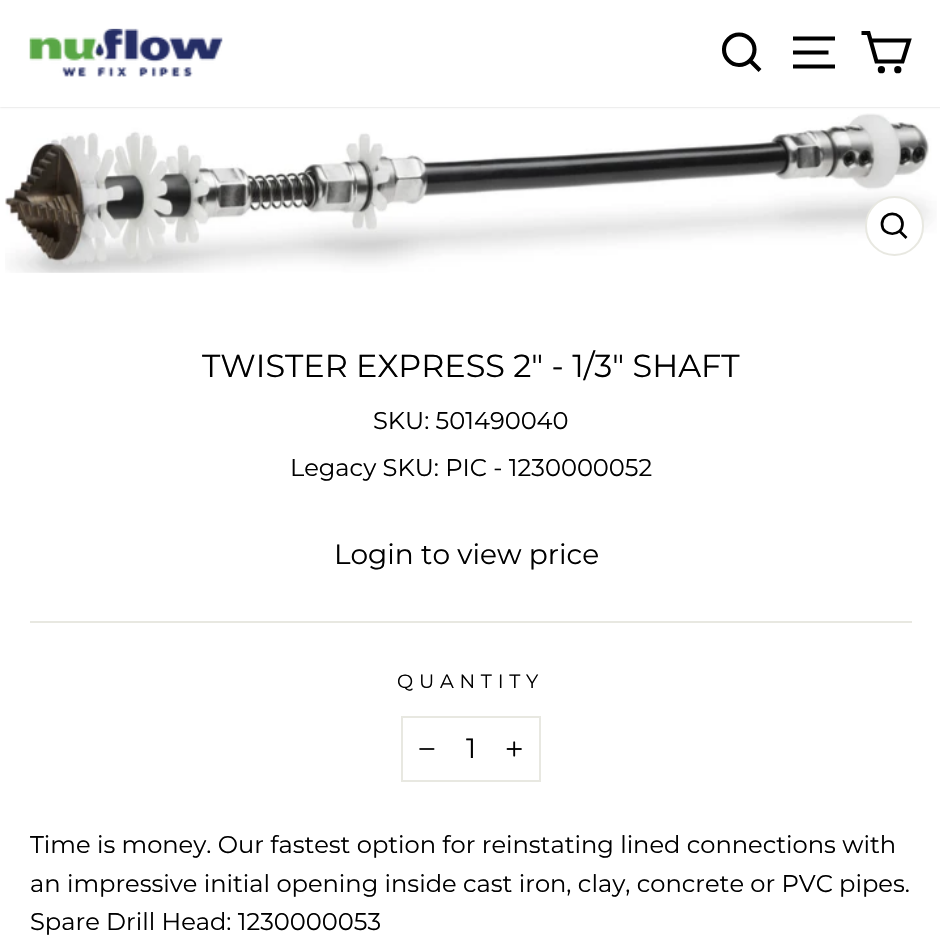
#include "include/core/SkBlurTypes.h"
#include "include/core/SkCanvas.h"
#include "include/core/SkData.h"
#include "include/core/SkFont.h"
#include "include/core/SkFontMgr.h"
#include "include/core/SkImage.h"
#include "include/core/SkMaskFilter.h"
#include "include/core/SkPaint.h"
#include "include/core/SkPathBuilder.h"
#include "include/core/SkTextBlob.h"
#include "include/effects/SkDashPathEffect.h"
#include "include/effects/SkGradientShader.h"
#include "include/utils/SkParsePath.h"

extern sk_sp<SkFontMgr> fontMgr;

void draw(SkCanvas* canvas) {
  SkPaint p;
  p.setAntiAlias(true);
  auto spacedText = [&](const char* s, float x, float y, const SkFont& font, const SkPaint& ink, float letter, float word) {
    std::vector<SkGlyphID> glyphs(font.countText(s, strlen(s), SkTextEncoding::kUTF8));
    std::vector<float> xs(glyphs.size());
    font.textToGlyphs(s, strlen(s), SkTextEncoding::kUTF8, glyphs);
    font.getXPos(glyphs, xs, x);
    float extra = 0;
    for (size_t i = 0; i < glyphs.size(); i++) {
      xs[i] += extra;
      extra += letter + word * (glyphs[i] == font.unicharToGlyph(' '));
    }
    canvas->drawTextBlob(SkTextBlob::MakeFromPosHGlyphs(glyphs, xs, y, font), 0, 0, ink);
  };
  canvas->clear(SK_ColorWHITE);
  p.setColor(SkColorSetARGB(51, 0, 0, 0));
  p.setMaskFilter(SkMaskFilter::MakeBlur(kNormal_SkBlurStyle, 1));
  canvas->drawRect(SkRect::MakeLTRB(0, 0, 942, 107), p);
  p.setMaskFilter(nullptr);
  p.setColor(SK_ColorWHITE);
  canvas->drawRect(SkRect::MakeLTRB(0, 0, 940, 107), p);
  canvas->drawImageRect(SkImages::DeferredFromEncodedData(SkData::MakeFromFileName("images/1.png")), SkRect::MakeLTRB(29, 28, 223, 77), SkSamplingOptions());
  p.setStyle(SkPaint::kStroke_Style);
  p.setStrokeWidth(4.1f);
  p.setColor(SK_ColorBLACK);
  canvas->drawPath(SkPathBuilder().moveTo(754.5f, 49.5f).cubicTo(754.5f, 58, 747.5f, 65, 739, 65).cubicTo(731, 65, 724, 58, 724, 49.5f).cubicTo(724, 41.5f, 731, 34.5f, 739, 34.5f).cubicTo(747.5f, 34.5f, 754.5f, 41.5f, 754.5f, 49.5f).close().moveTo(760, 70.5f).lineTo(750, 60.5f).detach(), p);
  canvas->drawPath(SkPathBuilder().moveTo(793, 38.5f).lineTo(835, 38.5f).moveTo(793, 52.5f).lineTo(828.5f, 52.5f).moveTo(793, 66.5f).lineTo(835, 66.5f).detach(), p);
  canvas->drawPath(SkPathBuilder().moveTo(870.5f, 40.5f).lineTo(909, 40.5f).lineTo(902.5f, 61.5f).lineTo(876.5f, 61.5f).lineTo(868.5f, 33).lineTo(861.5f, 33).detach(), p);
  p.setStyle(SkPaint::kFill_Style);
  canvas->drawCircle(881.4f, 69.7f, 1.6f, p);
  p.setStyle(SkPaint::kStroke_Style);
  canvas->drawCircle(881.4f, 69.7f, 1.6f, p);
  p.setStyle(SkPaint::kFill_Style);
  canvas->drawCircle(897.8f, 69.7f, 1.6f, p);
  p.setStyle(SkPaint::kStroke_Style);
  canvas->drawCircle(897.8f, 69.7f, 1.6f, p);
  canvas->drawImageRect(SkImages::DeferredFromEncodedData(SkData::MakeFromFileName("images/2.png")), SkRect::MakeLTRB(5, 113, 937, 273), SkSamplingOptions());
  p.setStyle(SkPaint::kFill_Style);
  p.setColor(SK_ColorWHITE);
  canvas->drawRoundRect(SkRect::MakeLTRB(866, 197, 923, 255), 28.5f, 28.5f, p);
  p.setStyle(SkPaint::kStroke_Style);
  p.setStrokeWidth(2);
  p.setColor(SkColorSetRGB(232, 232, 225));
  canvas->drawRoundRect(SkRect::MakeLTRB(866, 197, 923, 255), 28.5f, 28.5f, p);
  p.setStrokeWidth(2.7f);
  p.setColor(SK_ColorBLACK);
  canvas->drawPath(SkPathBuilder().moveTo(902.5f, 224).cubicTo(902.5f, 237, 882, 237, 882, 224).cubicTo(882, 210.5f, 902.5f, 210.5f, 902.5f, 224).close().moveTo(906.5f, 238).lineTo(899.5f, 231).detach(), p);
  p.setStyle(SkPaint::kFill_Style);
  p.setColor(SkColorSetRGB(232, 232, 225));
  canvas->drawRect(SkRect::MakeLTRB(30, 621, 912, 623), p);
  p.setStyle(SkPaint::kStroke_Style);
  p.setStrokeWidth(2);
  canvas->drawRect(SkRect::MakeLTRB(402, 717, 540, 781), p);
  canvas->drawImageRect(SkImages::DeferredFromEncodedData(SkData::MakeFromFileName("images/3.png")), SkRect::MakeLTRB(419, 748, 435, 750), SkSamplingOptions());
  canvas->drawImageRect(SkImages::DeferredFromEncodedData(SkData::MakeFromFileName("images/4.png")), SkRect::MakeLTRB(506, 741, 522, 757), SkSamplingOptions());
  SkFont font1(fontMgr->matchFamilyStyle("Montserrat", SkFontStyle::Normal()), 31.9f);
  font1.setSubpixel(true);
  p.setStyle(SkPaint::kFill_Style);
  p.setColor(SK_ColorBLACK);
  canvas->drawString("TWISTER EXPRESS 2\" - 1/3\" SHAFT", 202, 377, font1, p);
  SkFont font2(fontMgr->matchFamilyStyle("Montserrat", SkFontStyle::Normal()), 24.15f);
  font2.setSubpixel(true);
  canvas->drawString("SKU: 501490040", 373, 429, font2, p);
  canvas->drawString("Legacy SKU: PIC - 1230000052", 290, 476, font2, p);
  SkFont font3(fontMgr->matchFamilyStyle("Montserrat", SkFontStyle::Normal()), 28);
  font3.setSubpixel(true);
  canvas->drawString("Login to view price", 334, 564, font3, p);
  SkFont font4(fontMgr->matchFamilyStyle("Montserrat", SkFontStyle::Normal()), 19.25f);
  font4.setSubpixel(true);
  spacedText("QUANTITY", 397, 688, font4, p, 5.75f, 0);
  canvas->drawString("1", 466, 758, font3, p);
  canvas->drawString("Time is money. Our fastest option for reinstating lined connections with", 30, 853, font2, p);
  canvas->drawString("an impressive initial opening inside cast iron, clay, concrete or PVC pipes.", 30, 892, font2, p);
  canvas->drawString("Spare Drill Head: 1230000053", 30, 930, font2, p);
}
